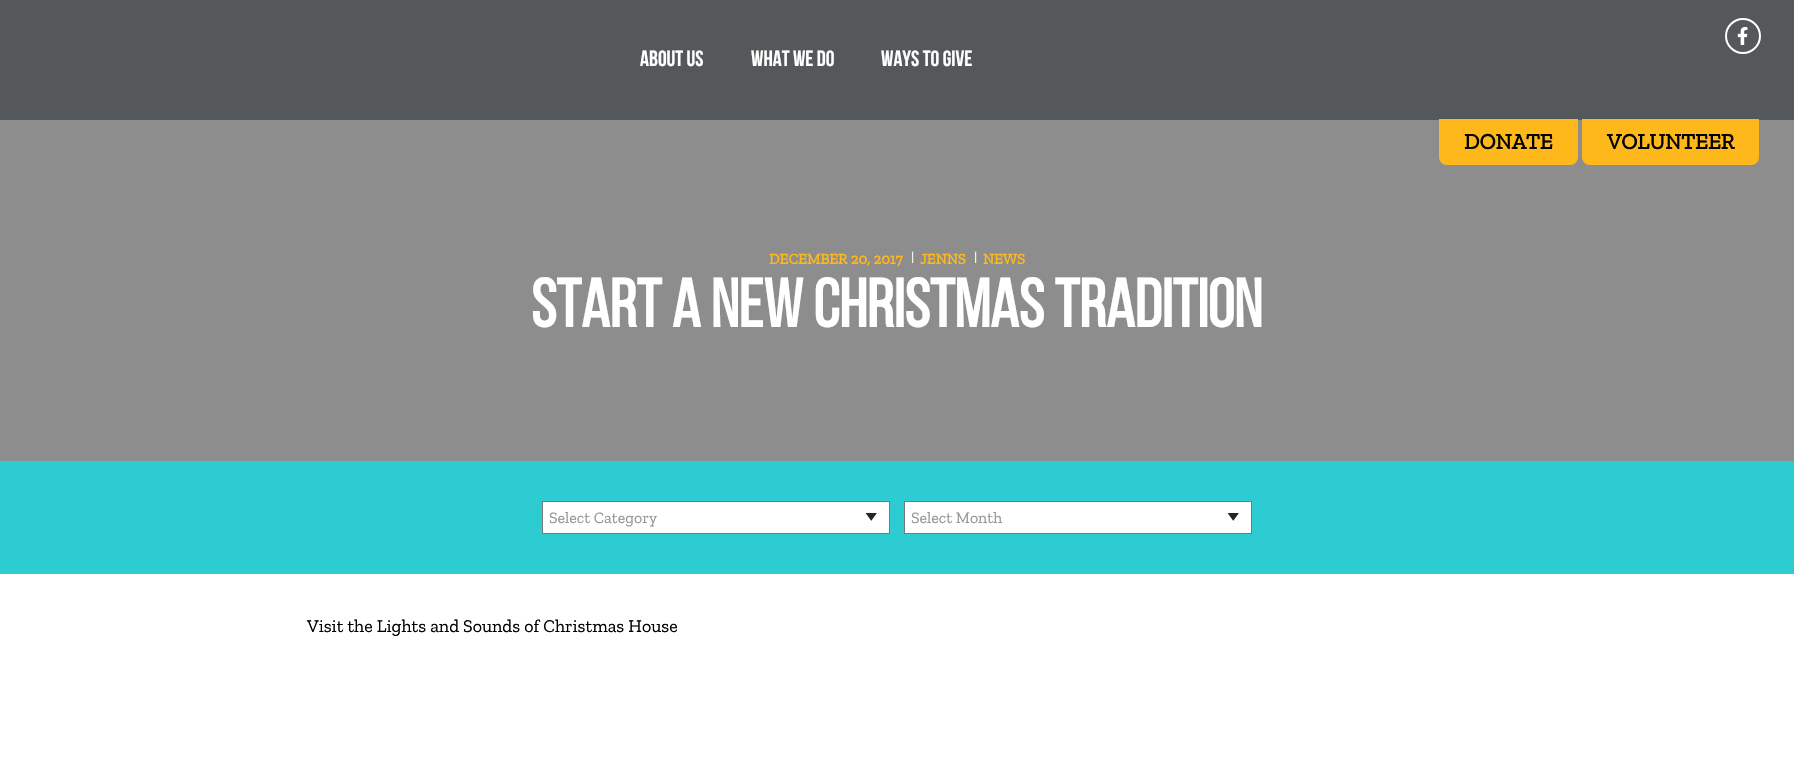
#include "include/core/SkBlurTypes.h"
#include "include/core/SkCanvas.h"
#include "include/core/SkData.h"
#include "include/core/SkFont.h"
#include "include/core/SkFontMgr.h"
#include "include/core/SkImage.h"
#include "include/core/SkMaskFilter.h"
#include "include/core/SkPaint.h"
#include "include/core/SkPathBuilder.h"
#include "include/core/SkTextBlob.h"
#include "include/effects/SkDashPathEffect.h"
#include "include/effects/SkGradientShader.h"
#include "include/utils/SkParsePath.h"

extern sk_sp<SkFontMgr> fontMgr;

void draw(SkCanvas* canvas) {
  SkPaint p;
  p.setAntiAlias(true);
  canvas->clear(SK_ColorWHITE);
  p.setColor(SkColorSetRGB(84, 88, 90));
  canvas->drawRect(SkRect::MakeLTRB(0, 0, 1794, 120), p);
  p.setStyle(SkPaint::kStroke_Style);
  p.setStrokeWidth(2);
  p.setColor(SK_ColorWHITE);
  canvas->drawCircle(1743, 36, 17, p);
  canvas->drawImageRect(SkImages::DeferredFromEncodedData(SkData::MakeFromFileName("images/1.png")), SkRect::MakeLTRB(1737, 27, 1748, 45), SkSamplingOptions());
  p.setStyle(SkPaint::kFill_Style);
  p.setColor(SkColorSetRGB(141, 141, 141));
  canvas->drawRect(SkRect::MakeLTRB(0, 120, 1794, 461), p);
  p.setColor(SkColorSetRGB(255, 184, 28));
  canvas->drawPath(SkPathBuilder().moveTo(1439, 119).lineTo(1578, 119).lineTo(1578, 157).cubicTo(1578, 161.5f, 1574.5f, 165, 1570, 165).lineTo(1447, 165).cubicTo(1442.5f, 165, 1439, 161.5f, 1439, 157).close().detach(), p);
  canvas->drawPath(SkPathBuilder().moveTo(1582, 119).lineTo(1759, 119).lineTo(1759, 157).cubicTo(1759, 161.5f, 1755.5f, 165, 1751, 165).lineTo(1590, 165).cubicTo(1585.5f, 165, 1582, 161.5f, 1582, 157).close().detach(), p);
  p.setColor(SkColorSetRGB(45, 204, 211));
  canvas->drawRect(SkRect::MakeLTRB(0, 461, 1794, 574), p);
  p.setColor(SK_ColorWHITE);
  canvas->drawRect(SkRect::MakeLTRB(543, 502, 889, 533), p);
  canvas->drawImageRect(SkImages::DeferredFromEncodedData(SkData::MakeFromFileName("images/2.png")), SkRect::MakeLTRB(865, 513, 877, 521), SkSamplingOptions());
  p.setStyle(SkPaint::kStroke_Style);
  p.setStrokeWidth(1);
  p.setColor(SkColorSetRGB(120, 120, 120));
  canvas->drawRect(SkRect::MakeLTRB(542.5f, 501.5f, 889.5f, 533.5f), p);
  p.setStyle(SkPaint::kFill_Style);
  p.setColor(SK_ColorWHITE);
  canvas->drawRect(SkRect::MakeLTRB(905, 502, 1251, 533), p);
  canvas->drawImageRect(SkImages::DeferredFromEncodedData(SkData::MakeFromFileName("images/2.png")), SkRect::MakeLTRB(1227, 513, 1239, 521), SkSamplingOptions());
  p.setStyle(SkPaint::kStroke_Style);
  p.setColor(SkColorSetRGB(120, 120, 120));
  canvas->drawRect(SkRect::MakeLTRB(904.5f, 501.5f, 1251.5f, 533.5f), p);
  SkFont font1(fontMgr->matchFamilyStyle("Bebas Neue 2", SkFontStyle::Bold()), 22);
  font1.setSubpixel(true);
  p.setStyle(SkPaint::kFill_Style);
  p.setColor(SK_ColorWHITE);
  canvas->drawString("ABOUT US", 640, 66, font1, p);
  canvas->drawString("WHAT WE DO", 751, 66, font1, p);
  canvas->drawString("WAYS TO GIVE", 881, 66, font1, p);
  SkFont font2(fontMgr->matchFamilyStyle("Zilla Slab", SkFontStyle::Bold()), 22);
  font2.setSubpixel(true);
  p.setColor(SK_ColorBLACK);
  canvas->drawString("DONATE", 1464, 149, font2, p);
  canvas->drawString("VOLUNTEER", 1607, 149, font2, p);
  SkFont font3(fontMgr->matchFamilyStyle("Zilla Slab", SkFontStyle::Bold()), 15);
  font3.setSubpixel(true);
  p.setColor(SkColorSetRGB(255, 184, 28));
  canvas->drawString("DECEMBER 20, 2017", 769, 264, font3, p);
  SkFont font4(fontMgr->matchFamilyStyle("Zilla Slab", SkFontStyle::Normal()), 14);
  font4.setSubpixel(true);
  p.setColor(SK_ColorWHITE);
  canvas->drawString("|", 911, 262, font4, p);
  p.setColor(SkColorSetRGB(255, 184, 28));
  canvas->drawString("JENNS", 920, 264, font3, p);
  p.setColor(SK_ColorWHITE);
  canvas->drawString("|", 974, 262, font4, p);
  p.setColor(SkColorSetRGB(255, 184, 28));
  canvas->drawString("NEWS", 983, 264, font3, p);
  SkFont font5(fontMgr->matchFamilyStyle("Bebas Neue", SkFontStyle::Bold()), 68);
  font5.setSubpixel(true);
  p.setColor(SK_ColorWHITE);
  canvas->drawString("START A NEW CHRISTMAS TRADITION", 531, 327, font5, p);
  SkFont font6(fontMgr->matchFamilyStyle("Zilla Slab", SkFontStyle::Normal()), 16);
  font6.setSubpixel(true);
  p.setColor(SkColorSetRGB(149, 149, 149));
  canvas->drawString("Select Category", 549, 523, font6, p);
  canvas->drawString("Select Month", 911, 523, font6, p);
  SkFont font7(fontMgr->matchFamilyStyle("Zilla Slab", SkFontStyle::Normal()), 18);
  font7.setSubpixel(true);
  p.setColor(SK_ColorBLACK);
  canvas->drawString("Visit the Lights and Sounds of Christmas House", 307, 632, font7, p);
}
